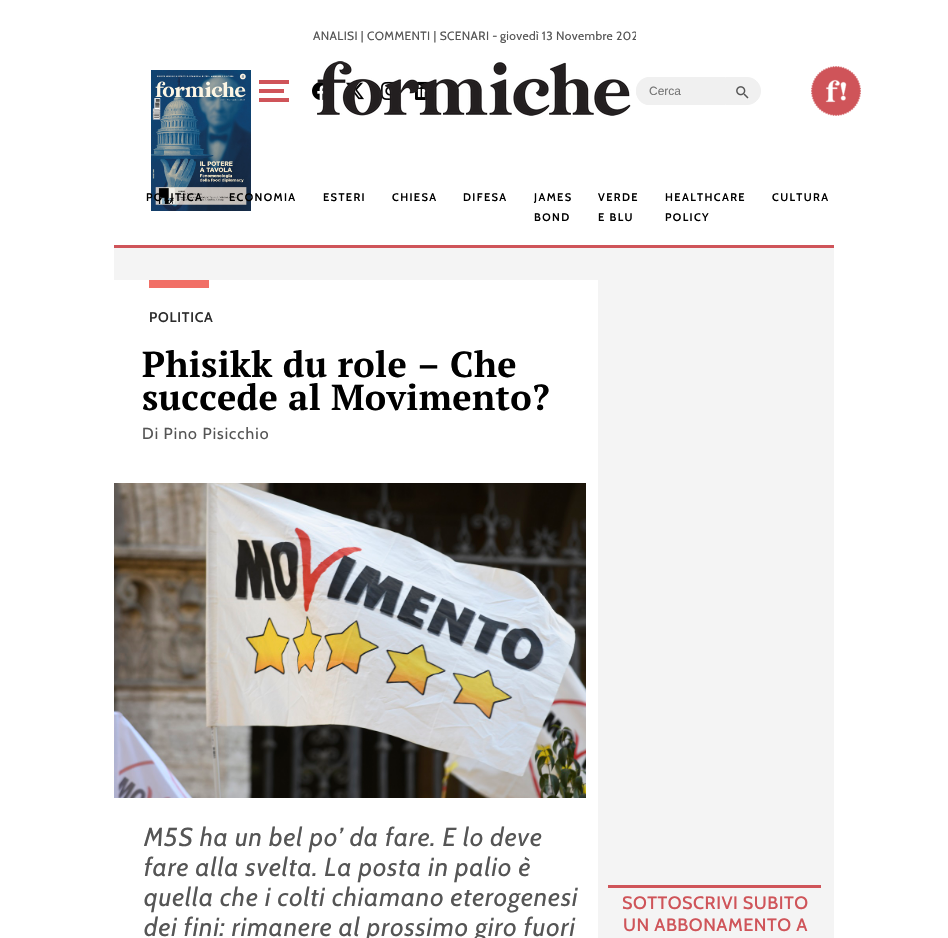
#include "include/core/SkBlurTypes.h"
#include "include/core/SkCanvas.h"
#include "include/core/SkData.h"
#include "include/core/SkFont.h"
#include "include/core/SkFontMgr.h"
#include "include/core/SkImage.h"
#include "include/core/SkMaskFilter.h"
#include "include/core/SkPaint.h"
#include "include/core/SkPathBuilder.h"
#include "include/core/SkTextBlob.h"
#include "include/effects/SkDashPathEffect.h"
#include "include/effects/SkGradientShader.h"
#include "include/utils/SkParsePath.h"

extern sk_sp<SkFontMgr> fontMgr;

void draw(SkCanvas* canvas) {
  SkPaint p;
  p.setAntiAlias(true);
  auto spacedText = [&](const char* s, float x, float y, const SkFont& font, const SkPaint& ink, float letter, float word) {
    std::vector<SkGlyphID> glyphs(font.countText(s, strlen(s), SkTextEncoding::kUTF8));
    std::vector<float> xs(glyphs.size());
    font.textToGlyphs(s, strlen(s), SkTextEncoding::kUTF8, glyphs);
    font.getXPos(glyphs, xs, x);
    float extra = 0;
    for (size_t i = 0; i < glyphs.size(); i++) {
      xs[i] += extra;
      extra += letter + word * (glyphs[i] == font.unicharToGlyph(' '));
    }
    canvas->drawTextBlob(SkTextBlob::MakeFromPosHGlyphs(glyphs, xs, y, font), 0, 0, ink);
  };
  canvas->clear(SK_ColorWHITE);
  p.setColor(SkColorSetRGB(207, 84, 89));
  canvas->drawRect(SkRect::MakeLTRB(114, 245, 834, 248), p);
  canvas->drawImageRect(SkImages::DeferredFromEncodedData(SkData::MakeFromFileName("images/3.png")), SkRect::MakeLTRB(312, 82, 326, 100), SkSamplingOptions());
  canvas->drawImageRect(SkImages::DeferredFromEncodedData(SkData::MakeFromFileName("images/4.png")), SkRect::MakeLTRB(346, 82, 364, 100), SkSamplingOptions());
  canvas->drawImageRect(SkImages::DeferredFromEncodedData(SkData::MakeFromFileName("images/5.png")), SkRect::MakeLTRB(381, 81, 400, 100), SkSamplingOptions());
  canvas->drawImageRect(SkImages::DeferredFromEncodedData(SkData::MakeFromFileName("images/6.png")), SkRect::MakeLTRB(415, 81, 433, 100), SkSamplingOptions());
  canvas->drawImageRect(SkImages::DeferredFromEncodedData(SkData::MakeFromFileName("images/1.png")), SkRect::MakeLTRB(317, 61, 631, 116), SkSamplingOptions());
  canvas->drawImageRect(SkImages::DeferredFromEncodedData(SkData::MakeFromFileName("images/2.png")), SkRect::MakeLTRB(151, 70, 251, 211), SkSamplingOptions());
  canvas->drawRect(SkRect::MakeLTRB(259, 80, 289, 84), p);
  canvas->drawRect(SkRect::MakeLTRB(259, 89, 284, 93), p);
  canvas->drawRect(SkRect::MakeLTRB(259, 98, 289, 102), p);
  p.setColor(SkColorSetRGB(240, 240, 240));
  canvas->drawPath(SkPathBuilder().moveTo(650, 77).lineTo(725, 77).lineTo(725, 105).lineTo(650, 105).cubicTo(642.5f, 105, 636, 98.5f, 636, 91).cubicTo(636, 83.5f, 642.5f, 77, 650, 77).close().detach(), p);
  canvas->drawPath(SkPathBuilder(SkPathFillType::kEvenOdd).moveTo(650, 77).lineTo(725, 77).lineTo(725, 105).lineTo(647, 105).cubicTo(631, 101, 633, 77, 650, 77).close().moveTo(650, 78).lineTo(725, 78).lineTo(725, 104).lineTo(650, 104).cubicTo(643, 104, 637, 98, 637, 91).cubicTo(637, 84, 643, 78, 650, 78).close().detach(), p);
  canvas->drawPath(SkPathBuilder().moveTo(725.5f, 77.5f).lineTo(747, 77.5f).cubicTo(754.5f, 77.5f, 760.5f, 83.5f, 760.5f, 91).cubicTo(760.5f, 98.5f, 754.5f, 104.5f, 747, 104.5f).lineTo(725.5f, 104.5f).close().detach(), p);
  p.setStyle(SkPaint::kStroke_Style);
  p.setStrokeWidth(1);
  canvas->drawPath(SkPathBuilder().moveTo(725.5f, 77.5f).lineTo(747, 77.5f).cubicTo(754.5f, 77.5f, 760.5f, 83.5f, 760.5f, 91).cubicTo(760.5f, 98.5f, 754.5f, 104.5f, 747, 104.5f).lineTo(725.5f, 104.5f).close().detach(), p);
  canvas->drawImageRect(SkImages::DeferredFromEncodedData(SkData::MakeFromFileName("images/7.png")), SkRect::MakeLTRB(736, 86, 749, 99), SkSamplingOptions());
  canvas->drawImageRect(SkImages::DeferredFromEncodedData(SkData::MakeFromFileName("images/8.png")), SkRect::MakeLTRB(811, 66, 861, 116), SkSamplingOptions());
  p.setStyle(SkPaint::kFill_Style);
  p.setColor(SkColorSetRGB(244, 244, 244));
  canvas->drawRect(SkRect::MakeLTRB(114, 248, 834, 280), p);
  p.setColor(SkColorSetRGB(241, 111, 102));
  canvas->drawRect(SkRect::MakeLTRB(149, 280, 209, 288), p);
  canvas->drawImageRect(SkImages::DeferredFromEncodedData(SkData::MakeFromFileName("images/9.png")), SkRect::MakeLTRB(114, 483, 586, 798), SkSamplingOptions());
  p.setColor(SkColorSetRGB(244, 244, 244));
  canvas->drawRect(SkRect::MakeLTRB(598, 280, 834, 938), p);
  p.setColor(SkColorSetRGB(207, 84, 89));
  canvas->drawRect(SkRect::MakeLTRB(608, 885, 821, 888), p);
  SkFont font1(fontMgr->matchFamilyStyle("Cabin", SkFontStyle::Normal()), 12);
  font1.setSubpixel(true);
  p.setColor(SkColorSetRGB(85, 85, 85));
  spacedText("ANALISI | COMMENTI | SCENARI -", 313, 40, font1, p, 0.35f, 0);
  canvas->save();
  canvas->clipRect(SkRect::MakeLTRB(313, 26, 636, 45));
  spacedText("giovedì 13 Novembre 202", 500, 40, font1, p, 0.35f, 0);
  canvas->restore();
  SkFont font2(fontMgr->matchFamilyStyle("Liberation Sans", SkFontStyle::Normal()), 12);
  font2.setSubpixel(true);
  p.setColor(SkColorSetRGB(117, 117, 117));
  canvas->drawString("Cerca", 649, 95, font2, p);
  SkFont font3(fontMgr->matchFamilyStyle("Cabin", SkFontStyle(600, SkFontStyle::kNormal_Width, SkFontStyle::kUpright_Slant)), 11);
  font3.setSubpixel(true);
  p.setColor(SK_ColorBLACK);
  spacedText("POLITICA", 146, 201, font3, p, 1.4f, 0);
  spacedText("ECONOMIA", 229, 201, font3, p, 1.4f, 0);
  spacedText("ESTERI", 323, 201, font3, p, 1.4f, 0);
  spacedText("CHIESA", 392, 201, font3, p, 1.4f, 0);
  spacedText("DIFESA", 463, 201, font3, p, 1.4f, 0);
  spacedText("JAMES", 534, 201, font3, p, 1.4f, 0);
  spacedText("BOND", 534, 221, font3, p, 1.4f, 0);
  spacedText("VERDE", 598, 201, font3, p, 1.4f, 0);
  spacedText("E BLU", 598, 221, font3, p, 1.4f, 0);
  spacedText("HEALTHCARE", 665, 201, font3, p, 1.4f, 0);
  spacedText("POLICY", 665, 221, font3, p, 1.4f, 0);
  spacedText("CULTURA", 772, 201, font3, p, 1.4f, 0);
  SkFont font4(fontMgr->matchFamilyStyle("Cabin", SkFontStyle(600, SkFontStyle::kNormal_Width, SkFontStyle::kUpright_Slant)), 14);
  font4.setSubpixel(true);
  p.setColor(SkColorSetRGB(44, 44, 44));
  spacedText("POLITICA", 149, 322, font4, p, 0.75f, 0);
  SkFont font5(fontMgr->matchFamilyStyle("PT Serif", SkFontStyle::Bold()), 36);
  font5.setSubpixel(true);
  p.setColor(SK_ColorBLACK);
  spacedText("Phisikk du role – Che", 142, 377, font5, p, 0.35f, 0);
  spacedText("succede al Movimento?", 142, 410, font5, p, 0.35f, 0);
  SkFont font6(fontMgr->matchFamilyStyle("Cabin", SkFontStyle::Normal()), 16);
  font6.setSubpixel(true);
  p.setColor(SkColorSetRGB(85, 85, 85));
  spacedText("Di Pino Pisicchio", 142, 439, font6, p, 1, 0);
  SkFont font7(fontMgr->matchFamilyStyle("Cabin", SkFontStyle::Italic()), 26);
  font7.setSubpixel(true);
  spacedText("M5S ha un bel po’ da fare. E lo deve", 144, 846, font7, p, 0.9f, 0);
  spacedText("fare alla svelta. La posta in palio è", 144, 876, font7, p, 0.9f, 0);
  spacedText("quella che i colti chiamano eterogenesi", 144, 906, font7, p, 0.9f, 0);
  spacedText("dei fini: rimanere al prossimo giro fuori", 144, 936, font7, p, 0.9f, 0);
  SkFont font8(fontMgr->matchFamilyStyle("Cabin", SkFontStyle(500, SkFontStyle::kNormal_Width, SkFontStyle::kUpright_Slant)), 18);
  font8.setSubpixel(true);
  p.setColor(SkColorSetRGB(207, 84, 89));
  spacedText("SOTTOSCRIVI SUBITO", 622, 909, font8, p, 0.5f, 0);
  spacedText("UN ABBONAMENTO A", 623, 931, font8, p, 0.5f, 0);
}
